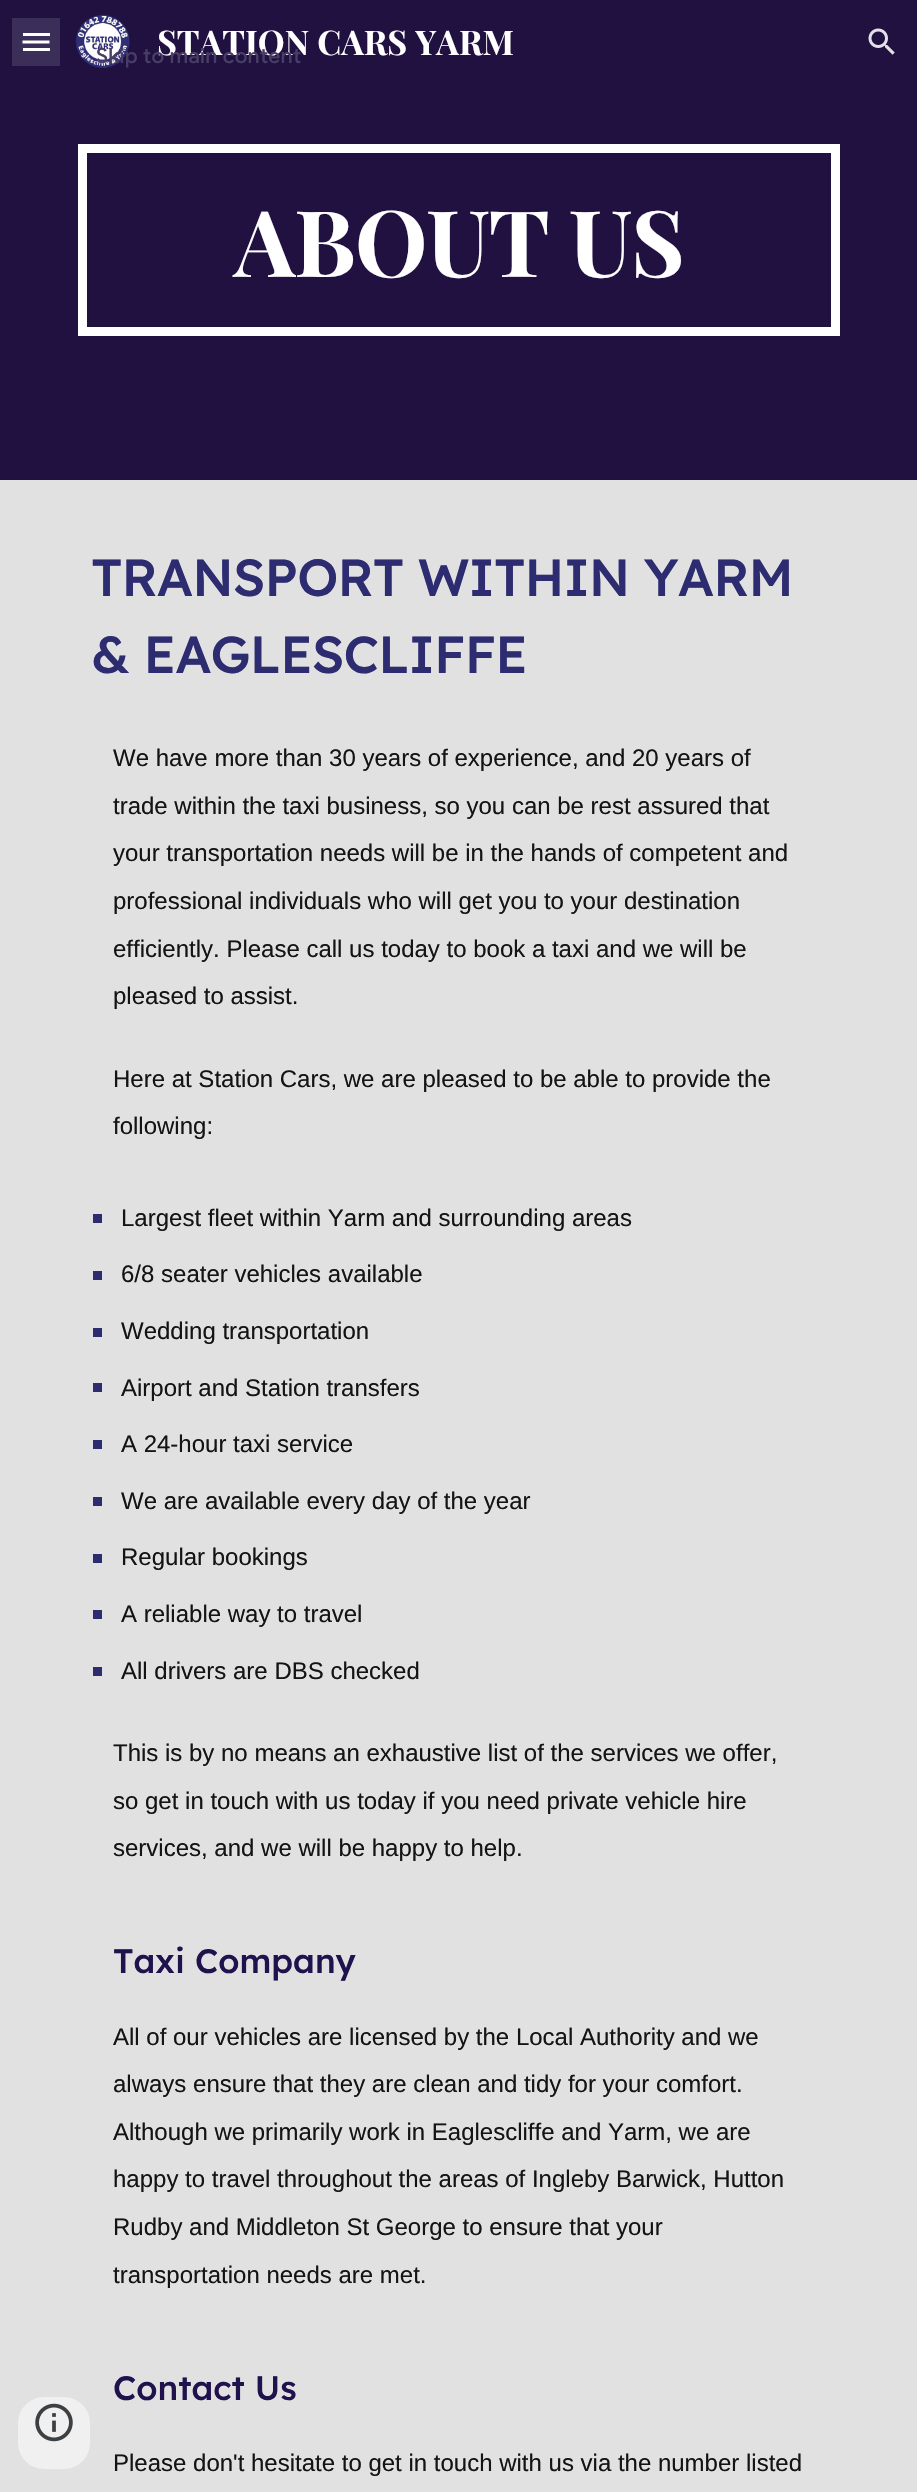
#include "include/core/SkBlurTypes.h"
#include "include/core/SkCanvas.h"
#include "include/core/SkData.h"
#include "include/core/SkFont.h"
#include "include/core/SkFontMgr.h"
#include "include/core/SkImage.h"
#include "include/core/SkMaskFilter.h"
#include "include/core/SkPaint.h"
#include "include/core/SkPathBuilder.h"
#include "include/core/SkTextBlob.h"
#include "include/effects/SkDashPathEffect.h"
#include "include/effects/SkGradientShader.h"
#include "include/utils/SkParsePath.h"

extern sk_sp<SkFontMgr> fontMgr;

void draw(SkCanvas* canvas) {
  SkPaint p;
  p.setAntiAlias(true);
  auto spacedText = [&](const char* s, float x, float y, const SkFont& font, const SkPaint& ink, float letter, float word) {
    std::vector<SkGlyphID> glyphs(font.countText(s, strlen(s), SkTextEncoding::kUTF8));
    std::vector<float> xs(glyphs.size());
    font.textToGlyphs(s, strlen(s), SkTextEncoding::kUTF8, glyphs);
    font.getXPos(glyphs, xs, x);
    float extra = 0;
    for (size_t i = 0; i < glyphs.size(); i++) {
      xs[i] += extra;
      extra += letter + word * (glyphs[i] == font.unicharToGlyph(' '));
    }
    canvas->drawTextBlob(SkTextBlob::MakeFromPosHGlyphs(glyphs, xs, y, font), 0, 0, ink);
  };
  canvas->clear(SkColorSetRGB(32, 17, 65));
  p.setColor(SkColorSetRGB(59, 46, 88));
  canvas->drawRect(SkRect::MakeLTRB(12, 18, 60, 66), p);
  p.setColor(SK_ColorWHITE);
  canvas->drawRect(SkRect::MakeLTRB(23, 33, 50, 36), p);
  p.setStyle(SkPaint::kStroke_Style);
  p.setStrokeWidth(3);
  canvas->drawPath(SkPathBuilder().moveTo(22.5f, 42).lineTo(49.5f, 42).detach(), p);
  p.setStyle(SkPaint::kFill_Style);
  canvas->drawRect(SkRect::MakeLTRB(23, 48, 50, 51), p);
  canvas->drawImageRect(SkImages::DeferredFromEncodedData(SkData::MakeFromFileName("images/1.png")), SkRect::MakeLTRB(75, 14, 130, 68), SkSamplingOptions());
  canvas->drawImageRect(SkImages::DeferredFromEncodedData(SkData::MakeFromFileName("images/2.png")), SkRect::MakeLTRB(868, 28, 895, 55), SkSamplingOptions());
  p.setColor(SkColorSetRGB(225, 225, 225));
  canvas->drawRect(SkRect::MakeLTRB(0, 480, 917, 2492), p);
  p.setColor(SkColorSetRGB(240, 240, 240));
  canvas->drawRoundRect(SkRect::MakeLTRB(18, 2397, 90, 2469), 26, 26, p);
  canvas->drawImageRect(SkImages::DeferredFromEncodedData(SkData::MakeFromFileName("images/3.png")), SkRect::MakeLTRB(35, 2403, 73, 2442), SkSamplingOptions());
  p.setStyle(SkPaint::kStroke_Style);
  p.setStrokeWidth(9);
  p.setColor(SK_ColorWHITE);
  canvas->drawRect(SkRect::MakeLTRB(82.5f, 148.5f, 835.5f, 331.5f), p);
  p.setStyle(SkPaint::kFill_Style);
  p.setColor(SkColorSetRGB(46, 44, 113));
  canvas->drawRect(SkRect::MakeLTRB(93, 1214, 102, 1223), p);
  canvas->drawRect(SkRect::MakeLTRB(93, 1271, 102, 1280), p);
  canvas->drawRect(SkRect::MakeLTRB(93, 1328, 102, 1337), p);
  canvas->drawRect(SkRect::MakeLTRB(93, 1383, 102, 1392), p);
  canvas->drawRect(SkRect::MakeLTRB(93, 1440, 102, 1449), p);
  canvas->drawRect(SkRect::MakeLTRB(93, 1497, 102, 1506), p);
  canvas->drawRect(SkRect::MakeLTRB(93, 1554, 102, 1563), p);
  canvas->drawRect(SkRect::MakeLTRB(93, 1610, 102, 1619), p);
  canvas->drawRect(SkRect::MakeLTRB(93, 1667, 102, 1676), p);
  SkFont font1(fontMgr->matchFamilyStyle("Playfair Display", SkFontStyle::Bold()), 34);
  font1.setSubpixel(true);
  p.setColor(SK_ColorWHITE);
  canvas->drawString("STATION CARS YARM", 157, 55, font1, p);
  SkFont font2(fontMgr->matchFamilyStyle("Playfair Display", SkFontStyle::Bold()), 92);
  font2.setSubpixel(true);
  spacedText("ABOUT US", 234, 277, font2, p, -1.25f, 0);
  SkFont font3(fontMgr->matchFamilyStyle("Lexend", SkFontStyle(500, SkFontStyle::kNormal_Width, SkFontStyle::kUpright_Slant)), 52);
  font3.setSubpixel(true);
  p.setColor(SkColorSetRGB(46, 44, 113));
  spacedText("TRANSPORT WITHIN YARM", 91, 596, font3, p, -0.9f, 0);
  spacedText("& EAGLESCLIFFE", 91, 673, font3, p, -0.9f, 0);
  SkFont font4(fontMgr->matchFamilyStyle("Liberation Sans", SkFontStyle::Normal()), 24);
  font4.setSubpixel(true);
  p.setColor(SkColorSetRGB(20, 20, 20));
  canvas->drawString("We have more than 30 years of experience, and 20 years of", 113, 766, font4, p);
  canvas->drawString("trade within the taxi business, so you can be rest assured that", 113, 814, font4, p);
  canvas->drawString("your transportation needs will be in the hands of competent and", 113, 861, font4, p);
  canvas->drawString("professional individuals who will get you to your destination", 113, 909, font4, p);
  canvas->drawString("efficiently. Please call us today to book a taxi and we will be", 113, 957, font4, p);
  canvas->drawString("pleased to assist.", 113, 1004, font4, p);
  canvas->drawString("Here at Station Cars, we are pleased to be able to provide the", 113, 1087, font4, p);
  canvas->drawString("following:", 113, 1134, font4, p);
  canvas->drawString("Largest fleet within Yarm and surrounding areas", 121, 1226, font4, p);
  canvas->drawString("6/8 seater vehicles available", 121, 1282, font4, p);
  canvas->drawString("Wedding transportation", 121, 1339, font4, p);
  canvas->drawString("Airport and Station transfers", 121, 1396, font4, p);
  canvas->drawString("A 24-hour taxi service", 121, 1452, font4, p);
  canvas->drawString("We are available every day of the year", 121, 1509, font4, p);
  canvas->drawString("Regular bookings", 121, 1565, font4, p);
  canvas->drawString("A reliable way to travel", 121, 1622, font4, p);
  canvas->drawString("All drivers are DBS checked", 121, 1679, font4, p);
  canvas->drawString("This is by no means an exhaustive list of the services we offer,", 113, 1761, font4, p);
  canvas->drawString("so get in touch with us today if you need private vehicle hire", 113, 1809, font4, p);
  canvas->drawString("services, and we will be happy to help.", 113, 1856, font4, p);
  SkFont font5(fontMgr->matchFamilyStyle("Lexend", SkFontStyle(500, SkFontStyle::kNormal_Width, SkFontStyle::kUpright_Slant)), 34);
  font5.setSubpixel(true);
  p.setColor(SkColorSetRGB(32, 18, 77));
  canvas->drawString("Taxi Company", 113, 1973, font5, p);
  p.setColor(SkColorSetRGB(20, 20, 20));
  canvas->drawString("All of our vehicles are licensed by the Local Authority and we", 113, 2045, font4, p);
  canvas->drawString("always ensure that they are clean and tidy for your comfort.", 113, 2092, font4, p);
  canvas->drawString("Although we primarily work in Eaglescliffe and Yarm, we are", 113, 2140, font4, p);
  canvas->drawString("happy to travel throughout the areas of Ingleby Barwick, Hutton", 113, 2187, font4, p);
  canvas->drawString("Rudby and Middleton St George to ensure that your", 113, 2235, font4, p);
  canvas->drawString("transportation needs are met.", 113, 2283, font4, p);
  p.setColor(SkColorSetRGB(32, 18, 77));
  canvas->drawString("Contact Us", 113, 2400, font5, p);
  p.setColor(SkColorSetRGB(20, 20, 20));
  canvas->drawString("Please don't hesitate to get in touch with us via the number listed", 113, 2471, font4, p);
  SkFont font6(fontMgr->matchFamilyStyle("Google Sans", SkFontStyle(500, SkFontStyle::kNormal_Width, SkFontStyle::kUpright_Slant)), 21);
  font6.setSubpixel(true);
  p.setColor(SkColorSetRGB(72, 61, 102));
  spacedText("Skip to main content", 96, 63, font6, p, 0.25f, 0);
}
